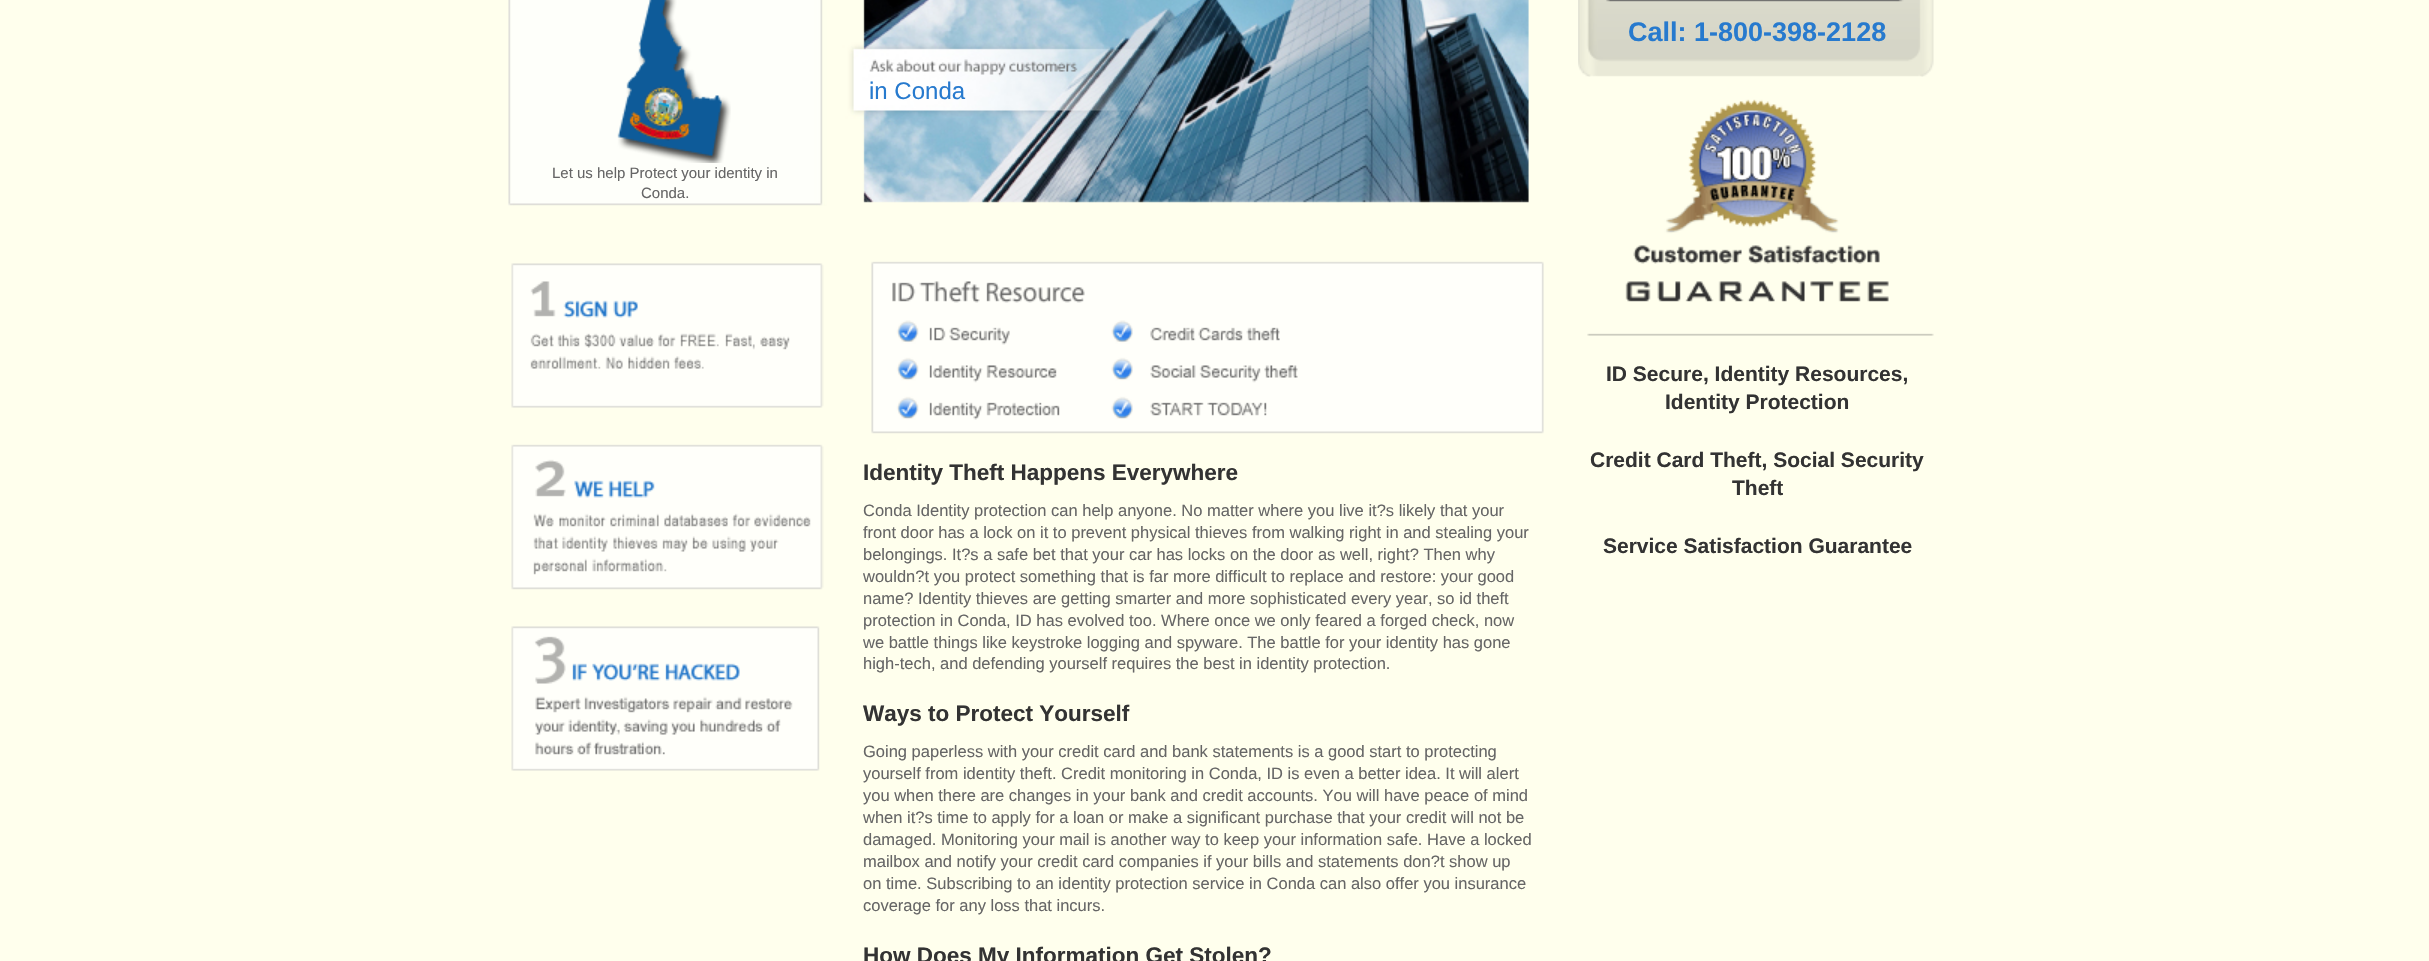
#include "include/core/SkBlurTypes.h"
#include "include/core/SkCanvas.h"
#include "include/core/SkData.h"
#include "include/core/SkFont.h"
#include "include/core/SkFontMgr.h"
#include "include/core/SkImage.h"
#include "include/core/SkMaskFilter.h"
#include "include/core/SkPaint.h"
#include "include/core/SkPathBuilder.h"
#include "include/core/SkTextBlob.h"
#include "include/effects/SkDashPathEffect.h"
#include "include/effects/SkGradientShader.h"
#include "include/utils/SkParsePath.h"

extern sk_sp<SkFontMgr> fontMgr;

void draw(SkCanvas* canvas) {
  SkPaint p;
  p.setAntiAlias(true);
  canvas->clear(SkColorSetRGB(255, 255, 237));
  canvas->drawImageRect(SkImages::DeferredFromEncodedData(SkData::MakeFromFileName("images/1.png")), SkRect::MakeLTRB(508, 0, 1529, 206), SkSamplingOptions());
  canvas->drawImageRect(SkImages::DeferredFromEncodedData(SkData::MakeFromFileName("images/2.png")), SkRect::MakeLTRB(617, 0, 731, 163), SkSamplingOptions());
  canvas->drawImageRect(SkImages::DeferredFromEncodedData(SkData::MakeFromFileName("images/3.png")), SkRect::MakeLTRB(511, 263, 824, 771), SkSamplingOptions());
  canvas->drawImageRect(SkImages::DeferredFromEncodedData(SkData::MakeFromFileName("images/4.png")), SkRect::MakeLTRB(871, 261, 1544, 434), SkSamplingOptions());
  canvas->drawImageRect(SkImages::DeferredFromEncodedData(SkData::MakeFromFileName("images/5.png")), SkRect::MakeLTRB(1578, 0, 1934, 77), SkSamplingOptions());
  canvas->drawImageRect(SkImages::DeferredFromEncodedData(SkData::MakeFromFileName("images/6.png")), SkRect::MakeLTRB(1606, 0, 1904, 2), SkSamplingOptions());
  canvas->drawImageRect(SkImages::DeferredFromEncodedData(SkData::MakeFromFileName("images/7.png")), SkRect::MakeLTRB(1587, 99, 1934, 336), SkSamplingOptions());
  SkFont font1(fontMgr->matchFamilyStyle("Liberation Sans", SkFontStyle::Normal()), 24);
  font1.setSubpixel(true);
  p.setColor(SkColorSetRGB(39, 122, 206));
  canvas->drawString("in Conda", 869, 99, font1, p);
  SkFont font2(fontMgr->matchFamilyStyle("Liberation Sans", SkFontStyle::Normal()), 15);
  font2.setSubpixel(true);
  p.setColor(SkColorSetRGB(102, 102, 102));
  canvas->drawString("Let us help Protect your identity in", 552, 178, font2, p);
  canvas->drawString("Conda.", 641, 198, font2, p);
  SkFont font3(fontMgr->matchFamilyStyle("Liberation Sans", SkFontStyle::Bold()), 22.5f);
  font3.setSubpixel(true);
  p.setColor(SkColorSetRGB(51, 51, 51));
  canvas->drawString("Identity Theft Happens Everywhere", 863, 480, font3, p);
  SkFont font4(fontMgr->matchFamilyStyle("Liberation Sans", SkFontStyle::Normal()), 16.5f);
  font4.setSubpixel(true);
  p.setColor(SkColorSetRGB(102, 102, 102));
  canvas->drawString("Conda Identity protection can help anyone. No matter where you live it?s likely that your", 863, 516, font4, p);
  canvas->drawString("front door has a lock on it to prevent physical thieves from walking right in and stealing your", 863, 538, font4, p);
  canvas->drawString("belongings. It?s a safe bet that your car has locks on the door as well, right? Then why", 863, 560, font4, p);
  canvas->drawString("wouldn?t you protect something that is far more difficult to replace and restore: your good", 863, 582, font4, p);
  canvas->drawString("name? Identity thieves are getting smarter and more sophisticated every year, so id theft", 863, 604, font4, p);
  canvas->drawString("protection in Conda, ID has evolved too. Where once we only feared a forged check, now", 863, 626, font4, p);
  canvas->drawString("we battle things like keystroke logging and spyware. The battle for your identity has gone", 863, 648, font4, p);
  canvas->drawString("high-tech, and defending yourself requires the best in identity protection.", 863, 669, font4, p);
  p.setColor(SkColorSetRGB(51, 51, 51));
  canvas->drawString("Ways to Protect Yourself", 863, 721, font3, p);
  p.setColor(SkColorSetRGB(102, 102, 102));
  canvas->drawString("Going paperless with your credit card and bank statements is a good start to protecting", 863, 757, font4, p);
  canvas->drawString("yourself from identity theft. Credit monitoring in Conda, ID is even a better idea. It will alert", 863, 779, font4, p);
  canvas->drawString("you when there are changes in your bank and credit accounts. You will have peace of mind", 863, 801, font4, p);
  canvas->drawString("when it?s time to apply for a loan or make a significant purchase that your credit will not be", 863, 823, font4, p);
  canvas->drawString("damaged. Monitoring your mail is another way to keep your information safe. Have a locked", 863, 845, font4, p);
  canvas->drawString("mailbox and notify your credit card companies if your bills and statements don?t show up", 863, 867, font4, p);
  canvas->drawString("on time. Subscribing to an identity protection service in Conda can also offer you insurance", 863, 889, font4, p);
  canvas->drawString("coverage for any loss that incurs.", 863, 911, font4, p);
  p.setColor(SkColorSetRGB(51, 51, 51));
  canvas->drawString("How Does My Information Get Stolen?", 863, 963, font3, p);
  SkFont font5(fontMgr->matchFamilyStyle("Liberation Sans", SkFontStyle::Bold()), 27);
  font5.setSubpixel(true);
  p.setColor(SkColorSetRGB(39, 122, 206));
  canvas->drawString("Call: 1-800-398-2128", 1628, 41, font5, p);
  SkFont font6(fontMgr->matchFamilyStyle("Liberation Sans", SkFontStyle::Bold()), 21);
  font6.setSubpixel(true);
  p.setColor(SkColorSetRGB(51, 51, 51));
  canvas->drawString("ID Secure, Identity Resources,", 1606, 381, font6, p);
  canvas->drawString("Identity Protection", 1665, 409, font6, p);
  canvas->drawString("Credit Card Theft, Social Security", 1590, 467, font6, p);
  canvas->drawString("Theft", 1732, 495, font6, p);
  canvas->drawString("Service Satisfaction Guarantee", 1603, 553, font6, p);
}
